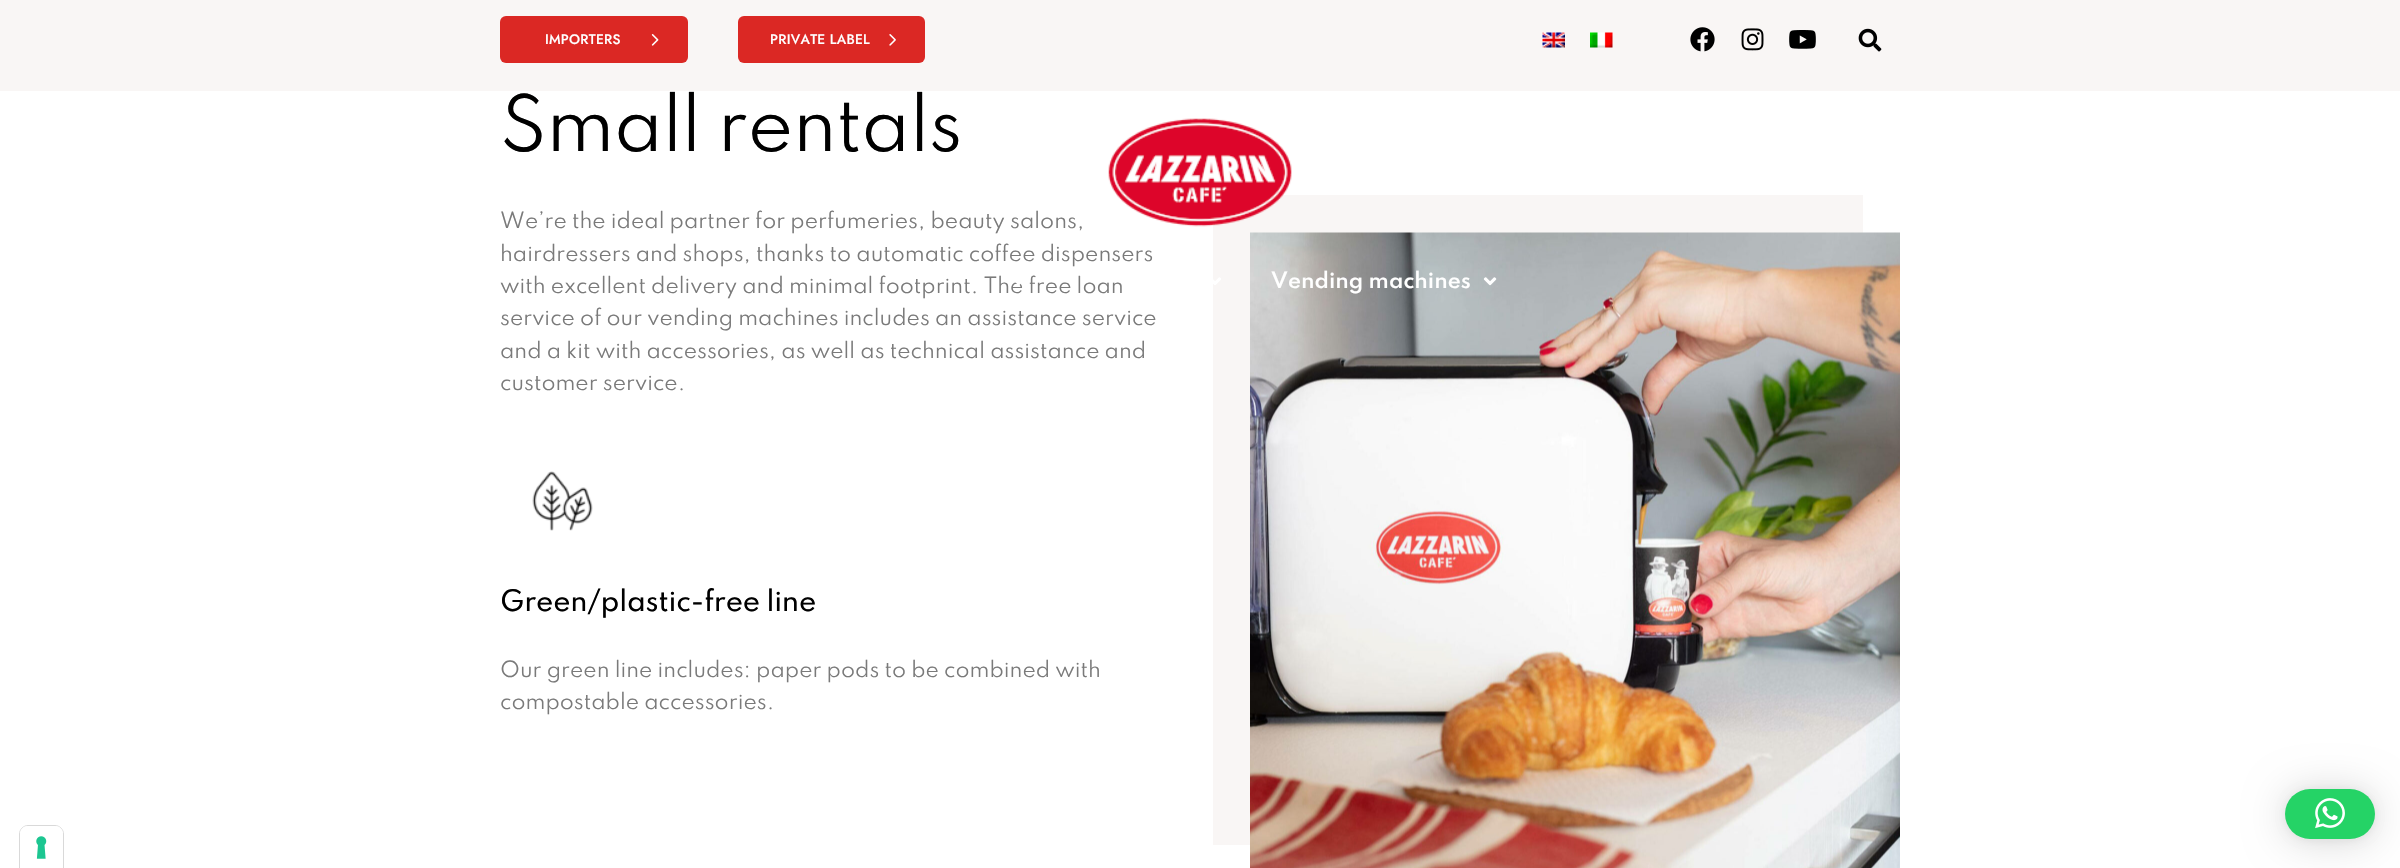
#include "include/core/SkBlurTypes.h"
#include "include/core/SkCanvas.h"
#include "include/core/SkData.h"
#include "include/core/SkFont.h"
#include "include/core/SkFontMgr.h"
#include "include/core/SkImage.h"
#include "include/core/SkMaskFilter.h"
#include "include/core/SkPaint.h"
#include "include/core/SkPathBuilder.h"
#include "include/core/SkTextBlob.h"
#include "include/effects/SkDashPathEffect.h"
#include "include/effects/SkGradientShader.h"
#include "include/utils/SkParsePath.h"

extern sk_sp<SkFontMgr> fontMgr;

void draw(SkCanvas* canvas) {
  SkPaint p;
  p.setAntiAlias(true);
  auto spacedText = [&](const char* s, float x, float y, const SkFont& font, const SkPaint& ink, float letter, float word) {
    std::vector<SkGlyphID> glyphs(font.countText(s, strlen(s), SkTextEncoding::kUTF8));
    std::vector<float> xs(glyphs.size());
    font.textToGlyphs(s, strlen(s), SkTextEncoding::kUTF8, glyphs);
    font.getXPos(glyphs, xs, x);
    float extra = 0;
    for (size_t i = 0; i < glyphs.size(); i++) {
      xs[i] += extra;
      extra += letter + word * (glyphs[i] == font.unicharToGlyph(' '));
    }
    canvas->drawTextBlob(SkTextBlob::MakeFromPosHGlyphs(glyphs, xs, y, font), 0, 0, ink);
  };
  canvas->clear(SK_ColorWHITE);
  p.setColor(SkColorSetRGB(249, 246, 245));
  canvas->drawRect(SkRect::MakeLTRB(0, 0, 2400, 91), p);
  p.setColor(SkColorSetRGB(219, 40, 36));
  canvas->drawRoundRect(SkRect::MakeLTRB(500, 16, 688, 63), 6, 6, p);
  canvas->drawImageRect(SkImages::DeferredFromEncodedData(SkData::MakeFromFileName("images/1.png")), SkRect::MakeLTRB(651, 34, 659, 46), SkSamplingOptions());
  canvas->drawRoundRect(SkRect::MakeLTRB(738, 16, 925, 63), 6, 6, p);
  canvas->drawImageRect(SkImages::DeferredFromEncodedData(SkData::MakeFromFileName("images/2.png")), SkRect::MakeLTRB(889, 34, 896, 46), SkSamplingOptions());
  canvas->drawImageRect(SkImages::DeferredFromEncodedData(SkData::MakeFromFileName("images/3.png")), SkRect::MakeLTRB(1542, 32, 1565, 48), SkSamplingOptions());
  canvas->drawImageRect(SkImages::DeferredFromEncodedData(SkData::MakeFromFileName("images/4.png")), SkRect::MakeLTRB(1590, 32, 1613, 48), SkSamplingOptions());
  canvas->drawImageRect(SkImages::DeferredFromEncodedData(SkData::MakeFromFileName("images/5.png")), SkRect::MakeLTRB(1690, 27, 1715, 52), SkSamplingOptions());
  canvas->drawImageRect(SkImages::DeferredFromEncodedData(SkData::MakeFromFileName("images/6.png")), SkRect::MakeLTRB(1741, 28, 1764, 51), SkSamplingOptions());
  canvas->drawImageRect(SkImages::DeferredFromEncodedData(SkData::MakeFromFileName("images/7.png")), SkRect::MakeLTRB(1789, 30, 1816, 49), SkSamplingOptions());
  canvas->drawImageRect(SkImages::DeferredFromEncodedData(SkData::MakeFromFileName("images/8.png")), SkRect::MakeLTRB(1858, 28, 1882, 52), SkSamplingOptions());
  p.setColor(SkColorSetRGB(249, 246, 245));
  canvas->drawRect(SkRect::MakeLTRB(1213, 195, 1863, 845), p);
  canvas->drawImageRect(SkImages::DeferredFromEncodedData(SkData::MakeFromFileName("images/9.png")), SkRect::MakeLTRB(1108, 118, 1292, 227), SkSamplingOptions());
  canvas->drawImageRect(SkImages::DeferredFromEncodedData(SkData::MakeFromFileName("images/11.png")), SkRect::MakeLTRB(1213, 277, 1221, 285), SkSamplingOptions());
  canvas->drawImageRect(SkImages::DeferredFromEncodedData(SkData::MakeFromFileName("images/14.png")), SkRect::MakeLTRB(1250, 232, 1900, 868), SkSamplingOptions());
  canvas->drawImageRect(SkImages::DeferredFromEncodedData(SkData::MakeFromFileName("images/12.png")), SkRect::MakeLTRB(1483, 277, 1497, 286), SkSamplingOptions());
  canvas->drawImageRect(SkImages::DeferredFromEncodedData(SkData::MakeFromFileName("images/13.png")), SkRect::MakeLTRB(532, 471, 593, 531), SkSamplingOptions());
  p.setStyle(SkPaint::kStroke_Style);
  p.setStrokeWidth(1);
  p.setColor(SkColorSetRGB(217, 217, 217));
  canvas->drawPath(SkPathBuilder().moveTo(28, 825.5f).lineTo(55, 825.5f).cubicTo(59.5f, 825.5f, 63.5f, 829.5f, 63.5f, 834).lineTo(63.5f, 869.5f).lineTo(19.5f, 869.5f).lineTo(19.5f, 834).cubicTo(19.5f, 829.5f, 23.5f, 825.5f, 28, 825.5f).close().detach(), p);
  p.setStyle(SkPaint::kFill_Style);
  p.setColor(SK_ColorWHITE);
  canvas->drawPath(SkPathBuilder().moveTo(28, 826).lineTo(55, 826).cubicTo(59.5f, 826, 63, 829.5f, 63, 834).lineTo(63, 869).lineTo(20, 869).lineTo(20, 834).cubicTo(20, 829.5f, 23.5f, 826, 28, 826).close().detach(), p);
  canvas->drawImageRect(SkImages::DeferredFromEncodedData(SkData::MakeFromFileName("images/15.png")), SkRect::MakeLTRB(36, 836, 47, 859), SkSamplingOptions());
  p.setColor(SkColorSetARGB(41, 0, 0, 0));
  p.setMaskFilter(SkMaskFilter::MakeBlur(kNormal_SkBlurStyle, 20));
  canvas->drawRoundRect(SkRect::MakeLTRB(2285, 791, 2375, 841), 25, 25, p);
  p.setMaskFilter(nullptr);
  p.setColor(SkColorSetARGB(15, 0, 0, 0));
  p.setMaskFilter(SkMaskFilter::MakeBlur(kNormal_SkBlurStyle, 4));
  canvas->drawRoundRect(SkRect::MakeLTRB(2285, 790, 2375, 840), 25, 25, p);
  p.setMaskFilter(nullptr);
  p.setColor(SkColorSetRGB(37, 211, 102));
  canvas->drawRoundRect(SkRect::MakeLTRB(2285, 789, 2375, 839), 25, 25, p);
  canvas->drawImageRect(SkImages::DeferredFromEncodedData(SkData::MakeFromFileName("images/16.png")), SkRect::MakeLTRB(2315, 798, 2345, 829), SkSamplingOptions());
  SkFont font1(fontMgr->matchFamilyStyle("Jost", SkFontStyle(500, SkFontStyle::kNormal_Width, SkFontStyle::kUpright_Slant)), 13.75f);
  font1.setSubpixel(true);
  p.setColor(SK_ColorWHITE);
  spacedText("IMPORTERS", 545, 44, font1, p, 0.25f, 0);
  spacedText("PRIVATE LABEL", 770, 44, font1, p, 0.25f, 0);
  SkFont font2(fontMgr->matchFamilyStyle("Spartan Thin", SkFontStyle(600, SkFontStyle::kNormal_Width, SkFontStyle::kUpright_Slant)), 20);
  font2.setSubpixel(true);
  canvas->drawString("Vending machines", 1271, 288, font2, p);
  SkFont font3(fontMgr->matchFamilyStyle("Spartan Thin", SkFontStyle::Normal()), 68.75f);
  font3.setSubpixel(true);
  p.setColor(SK_ColorBLACK);
  spacedText("Small rentals", 500, 151, font3, p, -0.75f, 0);
  SkFont font4(fontMgr->matchFamilyStyle("Spartan Thin", SkFontStyle::Normal()), 20);
  font4.setSubpixel(true);
  p.setColor(SkColorSetRGB(122, 122, 122));
  canvas->drawString("We’re the ideal partner for perfumeries, beauty salons,", 500, 228, font4, p);
  canvas->drawString("hairdressers and shops, thanks to automatic coffee dispensers", 500, 261, font4, p);
  canvas->drawString("with excellent delivery and minimal footprint. The free loan", 500, 293, font4, p);
  canvas->drawImageRect(SkImages::DeferredFromEncodedData(SkData::MakeFromFileName("images/10.png")), SkRect::MakeLTRB(1015, 282, 1021, 285), SkSamplingOptions());
  canvas->drawString("service of our vending machines includes an assistance service", 500, 325, font4, p);
  canvas->drawString("and a kit with accessories, as well as technical assistance and", 500, 358, font4, p);
  canvas->drawString("customer service.", 500, 390, font4, p);
  SkFont font5(fontMgr->matchFamilyStyle("Spartan Thin", SkFontStyle(500, SkFontStyle::kNormal_Width, SkFontStyle::kUpright_Slant)), 26.25f);
  font5.setSubpixel(true);
  p.setColor(SK_ColorBLACK);
  spacedText("Green/plastic-free line", 500, 611, font5, p, -0.25f, 0);
  p.setColor(SkColorSetRGB(122, 122, 122));
  canvas->drawString("Our green line includes: paper pods to be combined with", 500, 677, font4, p);
  canvas->drawString("compostable accessories.", 500, 709, font4, p);
}
